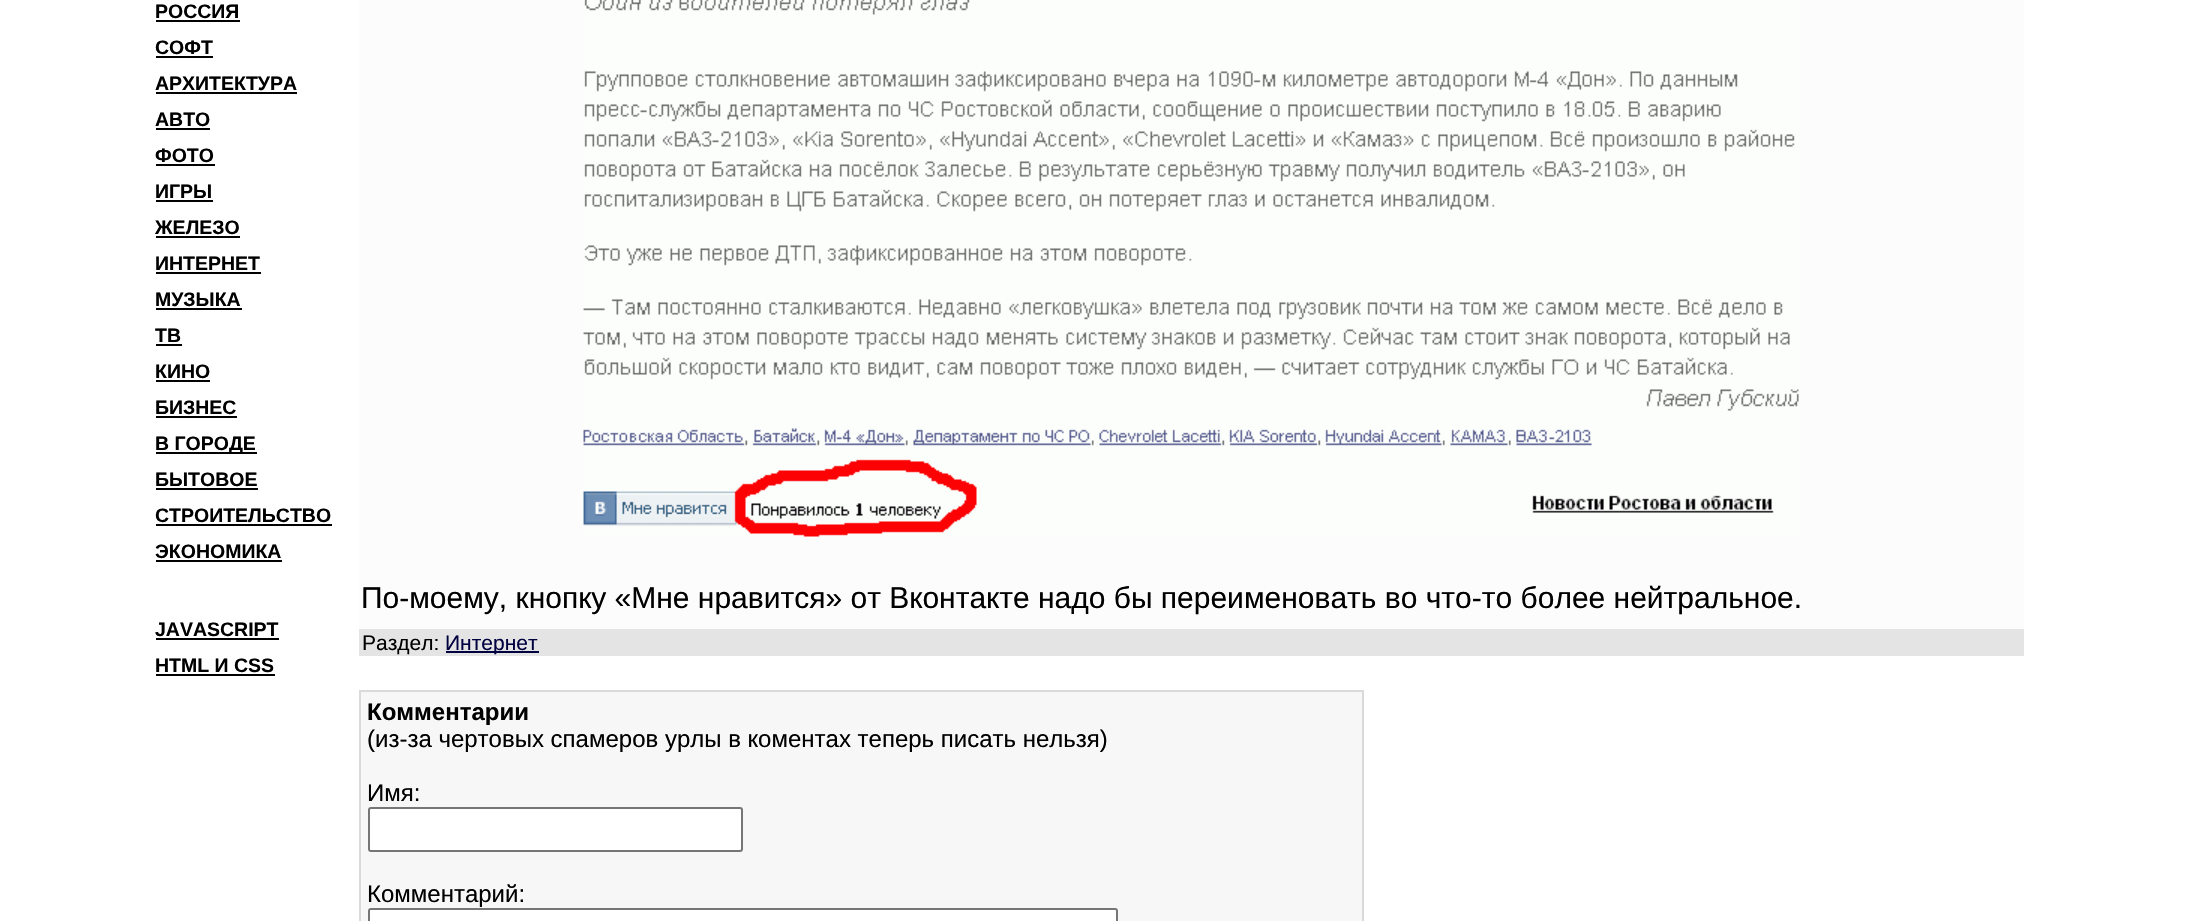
#include "include/core/SkBlurTypes.h"
#include "include/core/SkCanvas.h"
#include "include/core/SkData.h"
#include "include/core/SkFont.h"
#include "include/core/SkFontMgr.h"
#include "include/core/SkImage.h"
#include "include/core/SkMaskFilter.h"
#include "include/core/SkPaint.h"
#include "include/core/SkPathBuilder.h"
#include "include/core/SkTextBlob.h"
#include "include/effects/SkDashPathEffect.h"
#include "include/effects/SkGradientShader.h"
#include "include/utils/SkParsePath.h"

extern sk_sp<SkFontMgr> fontMgr;

void draw(SkCanvas* canvas) {
  SkPaint p;
  p.setAntiAlias(true);
  canvas->clear(SK_ColorWHITE);
  p.setColor(SK_ColorBLACK);
  canvas->drawRect(SkRect::MakeLTRB(156, 20, 240, 22), p);
  canvas->drawRect(SkRect::MakeLTRB(156, 56, 213, 58), p);
  canvas->drawRect(SkRect::MakeLTRB(156, 92, 297, 94), p);
  canvas->drawRect(SkRect::MakeLTRB(156, 128, 210, 130), p);
  canvas->drawRect(SkRect::MakeLTRB(156, 164, 215, 166), p);
  canvas->drawRect(SkRect::MakeLTRB(156, 200, 213, 202), p);
  canvas->drawRect(SkRect::MakeLTRB(156, 236, 240, 238), p);
  canvas->drawRect(SkRect::MakeLTRB(156, 272, 261, 274), p);
  canvas->drawRect(SkRect::MakeLTRB(156, 308, 242, 310), p);
  canvas->drawRect(SkRect::MakeLTRB(156, 344, 182, 346), p);
  canvas->drawRect(SkRect::MakeLTRB(156, 380, 210, 382), p);
  canvas->drawRect(SkRect::MakeLTRB(156, 416, 237, 418), p);
  canvas->drawRect(SkRect::MakeLTRB(156, 452, 257, 454), p);
  canvas->drawRect(SkRect::MakeLTRB(156, 488, 258, 490), p);
  canvas->drawRect(SkRect::MakeLTRB(156, 524, 332, 526), p);
  canvas->drawRect(SkRect::MakeLTRB(156, 560, 282, 562), p);
  canvas->drawRect(SkRect::MakeLTRB(156, 638, 279, 640), p);
  canvas->drawRect(SkRect::MakeLTRB(156, 674, 275, 676), p);
  p.setColor(SkColorSetRGB(252, 252, 252));
  canvas->drawRect(SkRect::MakeLTRB(359, 0, 2024, 629), p);
  canvas->drawImageRect(SkImages::DeferredFromEncodedData(SkData::MakeFromFileName("images/1.png")), SkRect::MakeLTRB(583, 0, 1799, 537), SkSamplingOptions());
  p.setColor(SkColorSetRGB(228, 228, 228));
  canvas->drawRect(SkRect::MakeLTRB(359, 629, 2024, 656), p);
  p.setColor(SkColorSetRGB(0, 0, 64));
  canvas->drawRect(SkRect::MakeLTRB(446, 651, 539, 653), p);
  p.setColor(SkColorSetRGB(247, 247, 247));
  canvas->drawRect(SkRect::MakeLTRB(360, 691, 1363, 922), p);
  p.setStyle(SkPaint::kStroke_Style);
  p.setStrokeWidth(2);
  p.setColor(SkColorSetRGB(218, 218, 218));
  canvas->drawRect(SkRect::MakeLTRB(360, 691, 1363, 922), p);
  p.setStyle(SkPaint::kFill_Style);
  p.setColor(SK_ColorWHITE);
  canvas->drawRoundRect(SkRect::MakeLTRB(369, 808, 742, 851), 2, 2, p);
  p.setStyle(SkPaint::kStroke_Style);
  p.setColor(SkColorSetRGB(118, 118, 118));
  canvas->drawRoundRect(SkRect::MakeLTRB(369, 808, 742, 851), 2, 2, p);
  p.setStyle(SkPaint::kFill_Style);
  p.setColor(SK_ColorWHITE);
  canvas->drawRoundRect(SkRect::MakeLTRB(369, 909, 1117, 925), 2, 2, p);
  p.setStyle(SkPaint::kStroke_Style);
  p.setColor(SkColorSetRGB(118, 118, 118));
  canvas->drawRoundRect(SkRect::MakeLTRB(369, 909, 1117, 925), 2, 2, p);
  SkFont font1(fontMgr->matchFamilyStyle("Liberation Sans", SkFontStyle::Bold()), 19.5f);
  font1.setSubpixel(true);
  p.setStyle(SkPaint::kFill_Style);
  p.setColor(SK_ColorBLACK);
  canvas->drawString("РОССИЯ", 155, 18, font1, p);
  canvas->drawString("СОФТ", 155, 54, font1, p);
  canvas->drawString("АРХИТЕКТУРА", 155, 90, font1, p);
  canvas->drawString("АВТО", 155, 126, font1, p);
  canvas->drawString("ФОТО", 155, 162, font1, p);
  canvas->drawString("ИГРЫ", 155, 198, font1, p);
  canvas->drawString("ЖЕЛЕЗО", 155, 234, font1, p);
  canvas->drawString("ИНТЕРНЕТ", 155, 270, font1, p);
  canvas->drawString("МУЗЫКА", 155, 306, font1, p);
  canvas->drawString("ТВ", 155, 342, font1, p);
  canvas->drawString("КИНО", 155, 378, font1, p);
  canvas->drawString("БИЗНЕС", 155, 414, font1, p);
  canvas->drawString("В ГОРОДЕ", 155, 450, font1, p);
  canvas->drawString("БЫТОВОЕ", 155, 486, font1, p);
  canvas->drawString("СТРОИТЕЛЬСТВО", 155, 522, font1, p);
  canvas->drawString("ЭКОНОМИКА", 155, 558, font1, p);
  canvas->drawString("JAVASCRIPT", 155, 636, font1, p);
  canvas->drawString("HTML И CSS", 155, 672, font1, p);
  SkFont font2(fontMgr->matchFamilyStyle("Liberation Sans", SkFontStyle::Normal()), 30);
  font2.setSubpixel(true);
  canvas->drawString("По-моему, кнопку «Мне нравится» от Вконтакте надо бы переименовать во что-то более нейтральное.", 361, 608, font2, p);
  SkFont font3(fontMgr->matchFamilyStyle("Liberation Sans", SkFontStyle::Normal()), 21);
  font3.setSubpixel(true);
  canvas->drawString("Раздел:", 362, 650, font3, p);
  p.setColor(SkColorSetRGB(0, 0, 64));
  canvas->drawString("Интернет", 445, 650, font3, p);
  SkFont font4(fontMgr->matchFamilyStyle("Liberation Sans", SkFontStyle::Bold()), 24);
  font4.setSubpixel(true);
  p.setColor(SK_ColorBLACK);
  canvas->drawString("Комментарии", 367, 720, font4, p);
  SkFont font5(fontMgr->matchFamilyStyle("Liberation Sans", SkFontStyle::Normal()), 24);
  font5.setSubpixel(true);
  canvas->drawString("(из-за чертовых спамеров урлы в коментах теперь писать нельзя)", 367, 747, font5, p);
  canvas->drawString("Имя:", 367, 801, font5, p);
  canvas->drawString("Комментарий:", 367, 902, font5, p);
}
